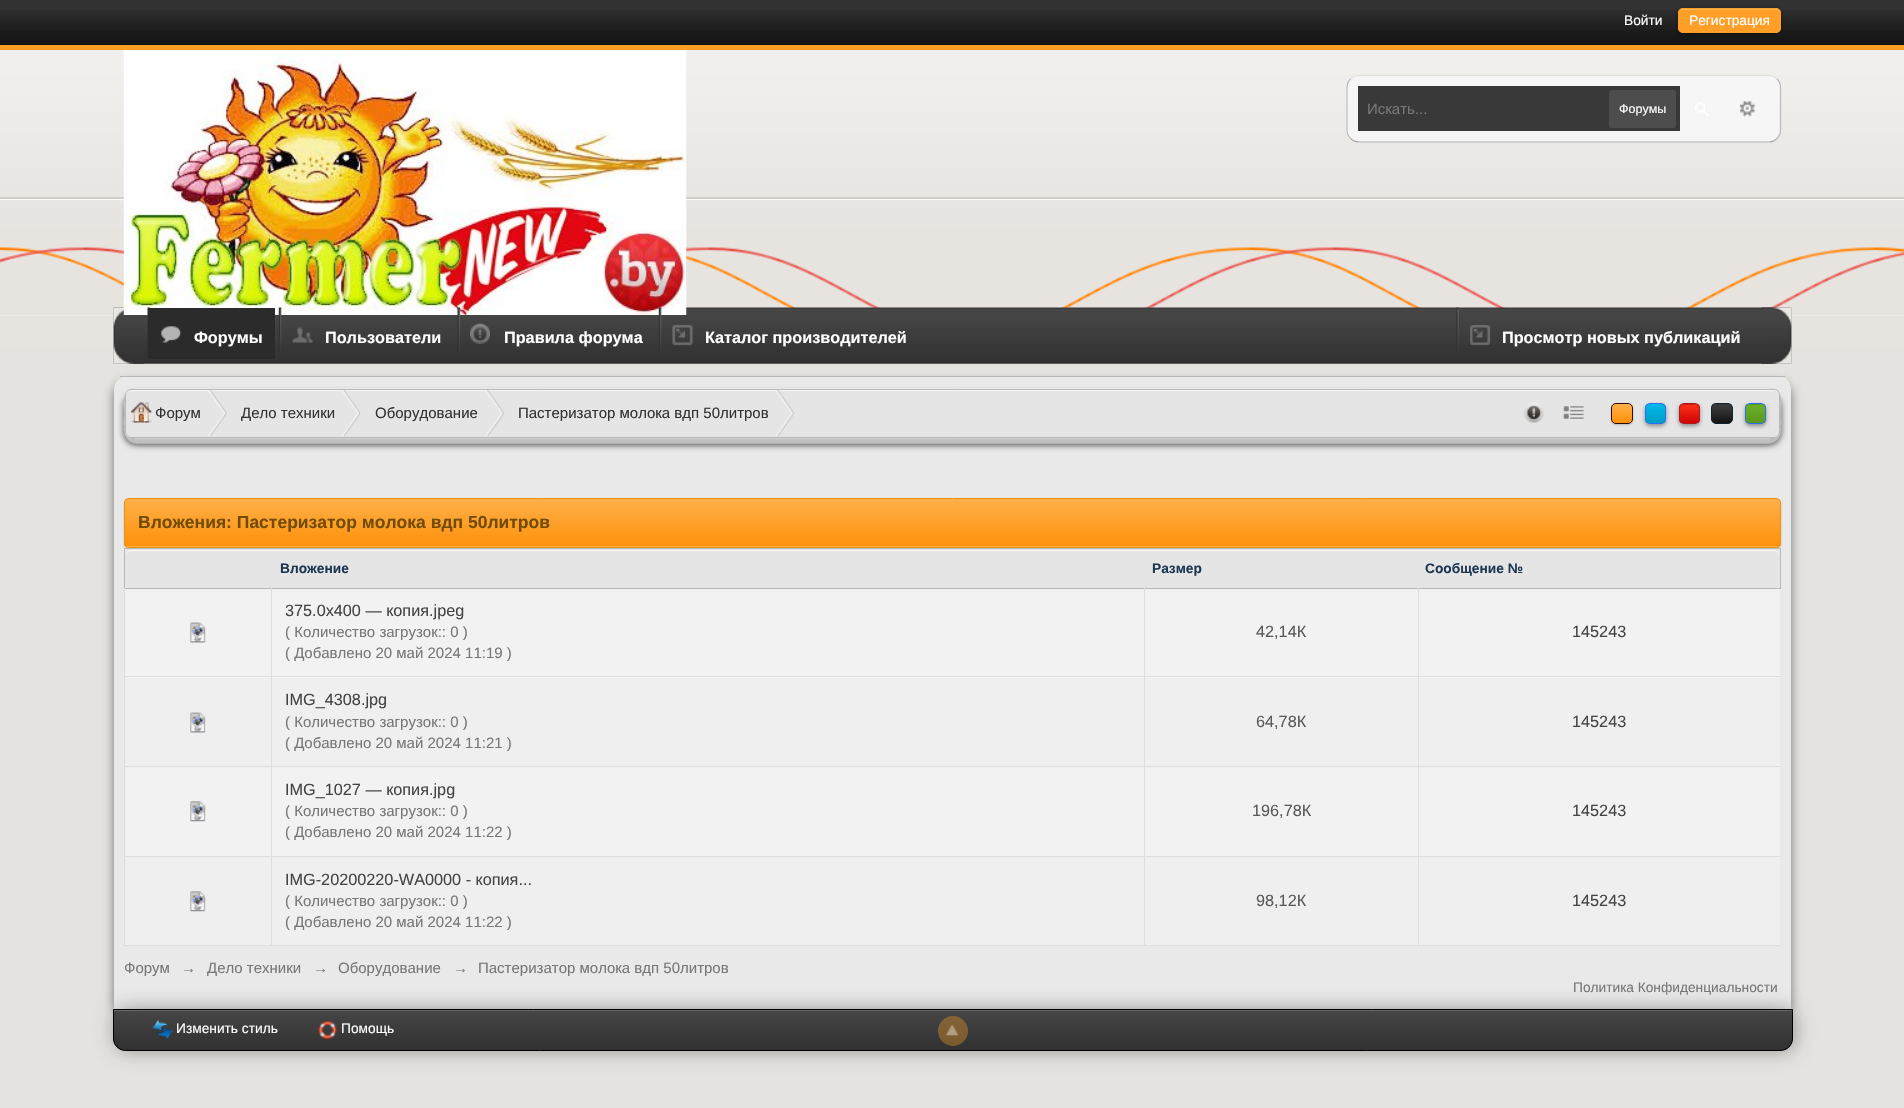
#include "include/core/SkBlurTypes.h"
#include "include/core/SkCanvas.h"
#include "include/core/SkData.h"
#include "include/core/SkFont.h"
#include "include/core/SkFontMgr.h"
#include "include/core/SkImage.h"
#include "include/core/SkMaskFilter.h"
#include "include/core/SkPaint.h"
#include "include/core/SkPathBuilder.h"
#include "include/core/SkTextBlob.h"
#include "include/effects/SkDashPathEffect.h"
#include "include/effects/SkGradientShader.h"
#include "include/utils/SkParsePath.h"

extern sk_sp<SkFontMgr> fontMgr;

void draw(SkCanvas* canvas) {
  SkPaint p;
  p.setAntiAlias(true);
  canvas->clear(SkColorSetRGB(229, 227, 223));
  canvas->drawImageRect(SkImages::DeferredFromEncodedData(SkData::MakeFromFileName("images/1.png")), SkRect::MakeLTRB(0, 50, 1904, 347), SkSamplingOptions());
  p.setColor(SkColorSetRGB(50, 50, 50));
  canvas->drawRect(SkRect::MakeLTRB(0, 0, 1904, 10), p);
  canvas->drawImageRect(SkImages::DeferredFromEncodedData(SkData::MakeFromFileName("images/2.png")), SkRect::MakeLTRB(0, 10, 1904, 45), SkSamplingOptions());
  p.setColor(SkColorSetRGB(255, 157, 34));
  canvas->drawRect(SkRect::MakeLTRB(0, 45, 1904, 50), p);
  p.setColor(SkColorSetARGB(102, 0, 0, 0));
  p.setMaskFilter(SkMaskFilter::MakeBlur(kNormal_SkBlurStyle, 2.5f));
  canvas->drawRoundRect(SkRect::MakeLTRB(1678, 9, 1781, 34), 5, 5, p);
  p.setMaskFilter(nullptr);
  p.setColor(SkColorSetRGB(255, 159, 39));
  canvas->drawRoundRect(SkRect::MakeLTRB(1678, 8, 1781, 33), 5, 5, p);
  p.setColor(SkColorSetRGB(255, 178, 82));
  canvas->drawPath(SkPathBuilder().moveTo(1682, 10).lineTo(1776, 10).cubicTo(1778, 10, 1780, 12, 1780, 14).cubicTo(1780, 5, 1765, 9, 1760, 9).lineTo(1698, 9).cubicTo(1694, 9, 1679, 5, 1679, 14).cubicTo(1679, 12, 1680, 10, 1682, 10).close().detach(), p);
  p.setStyle(SkPaint::kStroke_Style);
  p.setStrokeWidth(1);
  p.setColor(SkColorSetRGB(255, 159, 39));
  canvas->drawRoundRect(SkRect::MakeLTRB(1678.5f, 8.5f, 1780.5f, 32.5f), 4.5f, 4.5f, p);
  p.setStyle(SkPaint::kFill_Style);
  p.setColor(SkColorSetRGB(233, 233, 233));
  canvas->drawRect(SkRect::MakeLTRB(0, 315, 1904, 316), p);
  canvas->drawImageRect(SkImages::DeferredFromEncodedData(SkData::MakeFromFileName("images/6.png")), SkRect::MakeLTRB(113, 307, 1792, 364), SkSamplingOptions());
  canvas->drawImageRect(SkImages::DeferredFromEncodedData(SkData::MakeFromFileName("images/7.png")), SkRect::MakeLTRB(113, 307, 144, 364), SkSamplingOptions());
  canvas->drawImageRect(SkImages::DeferredFromEncodedData(SkData::MakeFromFileName("images/3.png")), SkRect::MakeLTRB(123, 50, 687, 315), SkSamplingOptions());
  p.setColor(SkColorSetRGB(246, 246, 246));
  canvas->drawRoundRect(SkRect::MakeLTRB(1346, 75, 1781, 143), 13, 13, p);
  p.setStyle(SkPaint::kStroke_Style);
  p.setStrokeWidth(1.2f);
  p.setColor(SkColorSetRGB(222, 222, 222));
  canvas->drawPath(SkPathBuilder().moveTo(1350.5f, 79).cubicTo(1352.5f, 77, 1355.5f, 75.5f, 1359, 75.5f).lineTo(1769, 75.5f).cubicTo(1772, 75.5f, 1775, 77, 1777, 79).detach(), p);
  p.setColor(SkColorSetRGB(186, 186, 186));
  canvas->drawPath(SkPathBuilder().moveTo(1777, 79).cubicTo(1779.5f, 81.5f, 1780.5f, 84.5f, 1780.5f, 87.5f).lineTo(1780.5f, 130).cubicTo(1780.5f, 133, 1779.5f, 136, 1777, 138.5f).detach(), p);
  p.setColor(SkColorSetRGB(170, 170, 170));
  canvas->drawPath(SkPathBuilder().moveTo(1777, 138.5f).cubicTo(1775, 140.5f, 1772, 142, 1769, 142).lineTo(1359, 142).cubicTo(1355.5f, 142, 1352.5f, 140.5f, 1350.5f, 138.5f).detach(), p);
  p.setColor(SkColorSetRGB(186, 186, 186));
  canvas->drawPath(SkPathBuilder().moveTo(1350.5f, 138.5f).cubicTo(1348, 136, 1347, 133, 1347, 130).lineTo(1347, 87.5f).cubicTo(1347, 84.5f, 1348, 81.5f, 1350.5f, 79).detach(), p);
  p.setStyle(SkPaint::kFill_Style);
  p.setColor(SkColorSetRGB(57, 57, 57));
  canvas->drawRect(SkRect::MakeLTRB(1358, 86, 1680, 131), p);
  p.setColor(SkColorSetRGB(77, 77, 77));
  canvas->drawRoundRect(SkRect::MakeLTRB(1609, 90, 1676, 128), 2.5f, 2.5f, p);
  canvas->drawImageRect(SkImages::DeferredFromEncodedData(SkData::MakeFromFileName("images/4.png")), SkRect::MakeLTRB(1695, 102, 1709, 116), SkSamplingOptions());
  canvas->drawImageRect(SkImages::DeferredFromEncodedData(SkData::MakeFromFileName("images/5.png")), SkRect::MakeLTRB(1739, 101, 1756, 117), SkSamplingOptions());
  canvas->drawImageRect(SkImages::DeferredFromEncodedData(SkData::MakeFromFileName("images/8.png")), SkRect::MakeLTRB(1761, 307, 1792, 364), SkSamplingOptions());
  canvas->drawImageRect(SkImages::DeferredFromEncodedData(SkData::MakeFromFileName("images/9.png")), SkRect::MakeLTRB(147, 307, 151, 353), SkSamplingOptions());
  p.setColor(SkColorSetRGB(43, 43, 43));
  canvas->drawRect(SkRect::MakeLTRB(148, 308, 275, 359), p);
  canvas->drawImageRect(SkImages::DeferredFromEncodedData(SkData::MakeFromFileName("images/10.png")), SkRect::MakeLTRB(161, 326, 182, 343), SkSamplingOptions());
  canvas->drawImageRect(SkImages::DeferredFromEncodedData(SkData::MakeFromFileName("images/11.png")), SkRect::MakeLTRB(278, 307, 282, 352), SkSamplingOptions());
  canvas->drawImageRect(SkImages::DeferredFromEncodedData(SkData::MakeFromFileName("images/12.png")), SkRect::MakeLTRB(292, 327, 313, 343), SkSamplingOptions());
  canvas->drawImageRect(SkImages::DeferredFromEncodedData(SkData::MakeFromFileName("images/13.png")), SkRect::MakeLTRB(457, 307, 461, 353), SkSamplingOptions());
  canvas->drawImageRect(SkImages::DeferredFromEncodedData(SkData::MakeFromFileName("images/14.png")), SkRect::MakeLTRB(470, 323, 490, 344), SkSamplingOptions());
  canvas->drawImageRect(SkImages::DeferredFromEncodedData(SkData::MakeFromFileName("images/15.png")), SkRect::MakeLTRB(658, 307, 662, 352), SkSamplingOptions());
  canvas->drawImageRect(SkImages::DeferredFromEncodedData(SkData::MakeFromFileName("images/16.png")), SkRect::MakeLTRB(672, 325, 693, 346), SkSamplingOptions());
  canvas->drawImageRect(SkImages::DeferredFromEncodedData(SkData::MakeFromFileName("images/17.png")), SkRect::MakeLTRB(1456, 307, 1459, 352), SkSamplingOptions());
  canvas->drawImageRect(SkImages::DeferredFromEncodedData(SkData::MakeFromFileName("images/18.png")), SkRect::MakeLTRB(1470, 325, 1491, 346), SkSamplingOptions());
  p.setColor(SkColorSetARGB(128, 0, 0, 0));
  p.setMaskFilter(SkMaskFilter::MakeBlur(kNormal_SkBlurStyle, 5.5f));
  canvas->drawRoundRect(SkRect::MakeLTRB(114, 383, 1791, 1015), 13, 13, p);
  p.setMaskFilter(nullptr);
  p.setColor(SkColorSetRGB(233, 233, 233));
  canvas->drawPath(SkPathBuilder().moveTo(127, 376).lineTo(1778, 376).cubicTo(1785, 376, 1791, 382, 1791, 389).lineTo(1791, 1009).lineTo(114, 1009).lineTo(114, 389).cubicTo(114, 382, 120, 376, 127, 376).close().detach(), p);
  p.setColor(SkColorSetRGB(183, 183, 183));
  canvas->drawRect(SkRect::MakeLTRB(120, 376, 1785, 377), p);
  p.setColor(SkColorSetRGB(68, 68, 68));
  p.setMaskFilter(SkMaskFilter::MakeBlur(kNormal_SkBlurStyle, 3));
  canvas->drawRoundRect(SkRect::MakeLTRB(124, 394, 1781, 445), 13, 13, p);
  p.setMaskFilter(nullptr);
  p.setColor(SkColorSetRGB(170, 170, 170));
  canvas->drawPath(SkPathBuilder().moveTo(124, 429).lineTo(124, 431).cubicTo(124, 438, 130, 444, 137, 444).lineTo(1768, 444).cubicTo(1775, 444, 1781, 438, 1781, 431).lineTo(1781, 429).cubicTo(1780, 434, 1775, 439, 1769, 439).lineTo(136, 439).cubicTo(130, 439, 125, 434, 124, 429).close().detach(), p);
  p.setColor(SkColorSetRGB(187, 187, 187));
  canvas->drawPath(SkPathBuilder().moveTo(124, 429).lineTo(124, 430).cubicTo(124, 437, 130, 443, 137, 443).lineTo(1768, 443).cubicTo(1775, 443, 1781, 437, 1781, 430).lineTo(1781, 429).cubicTo(1780, 434, 1775, 439, 1769, 439).lineTo(136, 439).cubicTo(130, 439, 125, 434, 124, 429).close().detach(), p);
  p.setColor(SkColorSetARGB(26, 255, 255, 255));
  p.setMaskFilter(SkMaskFilter::MakeBlur(kNormal_SkBlurStyle, 2));
  canvas->drawRoundRect(SkRect::MakeLTRB(124, 391, 1781, 443), 13, 13, p);
  p.setMaskFilter(nullptr);
  p.setColor(SkColorSetRGB(246, 246, 246));
  canvas->drawRoundRect(SkRect::MakeLTRB(124, 388, 1781, 439), 13, 13, p);
  p.setStyle(SkPaint::kStroke_Style);
  p.setColor(SkColorSetRGB(222, 222, 222));
  canvas->drawPath(SkPathBuilder().moveTo(128, 391.5f).cubicTo(130, 389.5f, 133, 388, 136, 388).lineTo(1769, 388).cubicTo(1772, 388, 1775, 389.5f, 1777, 391.5f).detach(), p);
  p.setColor(SkColorSetRGB(186, 186, 186));
  canvas->drawPath(SkPathBuilder().moveTo(1777, 391.5f).cubicTo(1782.5f, 397, 1780.5f, 406.5f, 1780.5f, 413).cubicTo(1780.5f, 420, 1782.5f, 429, 1777, 434.5f).detach(), p);
  p.setColor(SkColorSetRGB(170, 170, 170));
  canvas->drawPath(SkPathBuilder().moveTo(1777, 434.5f).cubicTo(1775, 437, 1772, 438, 1769, 438).lineTo(136, 438).cubicTo(133, 438, 130, 437, 128, 434.5f).detach(), p);
  p.setColor(SkColorSetRGB(186, 186, 186));
  canvas->drawPath(SkPathBuilder().moveTo(128, 434.5f).cubicTo(122.5f, 429, 124.5f, 420, 124.5f, 413).cubicTo(124.5f, 406.5f, 122.5f, 397, 128, 391.5f).detach(), p);
  p.setStyle(SkPaint::kFill_Style);
  p.setColor(SkColorSetRGB(229, 229, 229));
  canvas->drawRoundRect(SkRect::MakeLTRB(125, 389, 1780, 438), 6, 6, p);
  p.setColor(SkColorSetRGB(247, 247, 247));
  canvas->drawPath(SkPathBuilder().moveTo(131, 391).lineTo(1774, 391).cubicTo(1777, 391, 1779, 393, 1779, 396).lineTo(1779, 395).cubicTo(1779, 392, 1777, 390, 1774, 390).lineTo(131, 390).cubicTo(128, 390, 126, 392, 126, 395).lineTo(126, 396).cubicTo(126, 393, 128, 391, 131, 391).close().detach(), p);
  p.setStyle(SkPaint::kStroke_Style);
  p.setStrokeWidth(1);
  p.setColor(SkColorSetRGB(183, 183, 183));
  canvas->drawRoundRect(SkRect::MakeLTRB(125.5f, 389.5f, 1779.5f, 437.5f), 5.5f, 5.5f, p);
  canvas->drawImageRect(SkImages::DeferredFromEncodedData(SkData::MakeFromFileName("images/19.png")), SkRect::MakeLTRB(208, 390, 227, 436), SkSamplingOptions());
  canvas->drawImageRect(SkImages::DeferredFromEncodedData(SkData::MakeFromFileName("images/20.png")), SkRect::MakeLTRB(131, 402, 152, 423), SkSamplingOptions());
  canvas->drawImageRect(SkImages::DeferredFromEncodedData(SkData::MakeFromFileName("images/21.png")), SkRect::MakeLTRB(341, 390, 360, 437), SkSamplingOptions());
  canvas->drawImageRect(SkImages::DeferredFromEncodedData(SkData::MakeFromFileName("images/22.png")), SkRect::MakeLTRB(485, 390, 504, 437), SkSamplingOptions());
  canvas->drawImageRect(SkImages::DeferredFromEncodedData(SkData::MakeFromFileName("images/23.png")), SkRect::MakeLTRB(775, 390, 794, 437), SkSamplingOptions());
  canvas->drawImageRect(SkImages::DeferredFromEncodedData(SkData::MakeFromFileName("images/24.png")), SkRect::MakeLTRB(1523, 402, 1544, 423), SkSamplingOptions());
  canvas->drawImageRect(SkImages::DeferredFromEncodedData(SkData::MakeFromFileName("images/25.png")), SkRect::MakeLTRB(1563, 406, 1584, 419), SkSamplingOptions());
  p.setStyle(SkPaint::kFill_Style);
  p.setColor(SkColorSetARGB(51, 0, 0, 0));
  p.setMaskFilter(SkMaskFilter::MakeBlur(kNormal_SkBlurStyle, 1));
  canvas->drawRoundRect(SkRect::MakeLTRB(1611, 404, 1633, 425), 5, 5, p);
  p.setMaskFilter(nullptr);
  canvas->save();
  canvas->clipPath(SkPathBuilder().moveTo(1616, 403).lineTo(1628, 403).cubicTo(1631, 403, 1633, 405, 1633, 408).lineTo(1633, 419).cubicTo(1633, 422, 1631, 424, 1628, 424).lineTo(1616, 424).cubicTo(1613, 424, 1611, 422, 1611, 419).lineTo(1611, 408).cubicTo(1611, 405, 1613, 403, 1616, 403).close().detach(), true);
  {
    const SkColor colors[] = {SkColorSetRGB(255, 175, 75), SkColorSetRGB(255, 146, 10)};
    const float stops[] = {0, 1};
    const SkPoint ends[] = {{1622, 404}, {1622, 423}};
    p.setShader(SkGradientShader::MakeLinear(ends, colors, stops, 2, SkTileMode::kClamp));
    p.setAlpha(255);
  }
  canvas->drawRect(SkRect::MakeLTRB(1611, 404, 1633, 423), p);
  canvas->restore();
  p.setStyle(SkPaint::kStroke_Style);
  p.setShader(nullptr);
  p.setColor(SkColorSetRGB(51, 10, 10));
  canvas->drawRoundRect(SkRect::MakeLTRB(1611.5f, 403.5f, 1632.5f, 423.5f), 4.5f, 4.5f, p);
  p.setStyle(SkPaint::kFill_Style);
  p.setColor(SkColorSetARGB(102, 0, 0, 0));
  p.setMaskFilter(SkMaskFilter::MakeBlur(kNormal_SkBlurStyle, 2));
  canvas->drawRoundRect(SkRect::MakeLTRB(1645, 405, 1666, 426), 5, 5, p);
  p.setMaskFilter(nullptr);
  canvas->save();
  canvas->clipPath(SkPathBuilder().moveTo(1650, 403).lineTo(1661, 403).cubicTo(1664, 403, 1666, 405, 1666, 408).lineTo(1666, 419).cubicTo(1666, 422, 1664, 424, 1661, 424).lineTo(1650, 424).cubicTo(1647, 424, 1645, 422, 1645, 419).lineTo(1645, 408).cubicTo(1645, 405, 1647, 403, 1650, 403).close().detach(), true);
  {
    const SkColor colors[] = {SkColorSetRGB(0, 183, 234), SkColorSetRGB(0, 158, 195)};
    const float stops[] = {0, 1};
    const SkPoint ends[] = {{1656, 404}, {1656, 423}};
    p.setShader(SkGradientShader::MakeLinear(ends, colors, stops, 2, SkTileMode::kClamp));
    p.setAlpha(255);
  }
  canvas->drawRect(SkRect::MakeLTRB(1645, 404, 1666, 423), p);
  canvas->restore();
  p.setShader(nullptr);
  p.setColor(SkColorSetRGB(0, 183, 234));
  canvas->drawPath(SkPathBuilder(SkPathFillType::kEvenOdd).moveTo(1650, 405).lineTo(1663, 405).cubicTo(1664, 406, 1665, 407, 1665, 408.5f).cubicTo(1665, 403, 1659.5f, 404, 1655.5f, 404).cubicTo(1650.5f, 404, 1646, 403, 1646, 409).cubicTo(1646, 407, 1647, 405, 1650, 405).close().moveTo(1646.5f, 420.5f).lineTo(1646, 419.5f).close().detach(), p);
  p.setStyle(SkPaint::kStroke_Style);
  p.setColor(SkColorSetRGB(43, 110, 247));
  canvas->drawRoundRect(SkRect::MakeLTRB(1645.5f, 403.5f, 1665.5f, 423.5f), 4.5f, 4.5f, p);
  p.setStyle(SkPaint::kFill_Style);
  p.setColor(SkColorSetARGB(102, 0, 0, 0));
  p.setMaskFilter(SkMaskFilter::MakeBlur(kNormal_SkBlurStyle, 2));
  canvas->drawRoundRect(SkRect::MakeLTRB(1679, 405, 1700, 426), 5, 5, p);
  p.setMaskFilter(nullptr);
  canvas->save();
  canvas->clipPath(SkPathBuilder().moveTo(1684, 403).lineTo(1695, 403).cubicTo(1698, 403, 1700, 405, 1700, 408).lineTo(1700, 419).cubicTo(1700, 422, 1698, 424, 1695, 424).lineTo(1684, 424).cubicTo(1681, 424, 1679, 422, 1679, 419).lineTo(1679, 408).cubicTo(1679, 405, 1681, 403, 1684, 403).close().detach(), true);
  {
    const SkColor colors[] = {SkColorSetRGB(255, 48, 25), SkColorSetRGB(207, 4, 4)};
    const float stops[] = {0, 1};
    const SkPoint ends[] = {{1689, 404}, {1689, 423}};
    p.setShader(SkGradientShader::MakeLinear(ends, colors, stops, 2, SkTileMode::kClamp));
    p.setAlpha(255);
  }
  canvas->drawRect(SkRect::MakeLTRB(1679, 404, 1700, 423), p);
  canvas->restore();
  p.setShader(nullptr);
  p.setColor(SkColorSetRGB(195, 30, 30));
  canvas->drawPath(SkPathBuilder().moveTo(1684, 405).lineTo(1696, 405).cubicTo(1698, 406, 1699, 407.5f, 1699, 409.5f).cubicTo(1699, 403, 1695, 404, 1689.5f, 404).cubicTo(1684.5f, 404, 1680, 403, 1680, 409).cubicTo(1680, 407, 1681, 405, 1684, 405).close().detach(), p);
  p.setStyle(SkPaint::kStroke_Style);
  p.setColor(SkColorSetRGB(173, 28, 28));
  canvas->drawRoundRect(SkRect::MakeLTRB(1679.5f, 403.5f, 1699.5f, 423.5f), 4.5f, 4.5f, p);
  canvas->drawImageRect(SkImages::DeferredFromEncodedData(SkData::MakeFromFileName("images/26.png")), SkRect::MakeLTRB(1711, 403, 1733, 424), SkSamplingOptions());
  p.setColor(SkColorSetRGB(10, 37, 51));
  canvas->drawRoundRect(SkRect::MakeLTRB(1711.5f, 403.5f, 1732.5f, 423.5f), 4.5f, 4.5f, p);
  p.setStyle(SkPaint::kFill_Style);
  p.setColor(SkColorSetARGB(102, 0, 0, 0));
  p.setMaskFilter(SkMaskFilter::MakeBlur(kNormal_SkBlurStyle, 2));
  canvas->drawRoundRect(SkRect::MakeLTRB(1745, 405, 1766, 426), 5, 5, p);
  p.setMaskFilter(nullptr);
  canvas->save();
  canvas->clipPath(SkPathBuilder().moveTo(1750, 403).lineTo(1761, 403).cubicTo(1764, 403, 1766, 405, 1766, 408).lineTo(1766, 419).cubicTo(1766, 422, 1764, 424, 1761, 424).lineTo(1750, 424).cubicTo(1747, 424, 1745, 422, 1745, 419).lineTo(1745, 408).cubicTo(1745, 405, 1747, 403, 1750, 403).close().detach(), true);
  {
    const SkColor colors[] = {SkColorSetRGB(108, 177, 41), SkColorSetRGB(89, 153, 28)};
    const float stops[] = {0, 1};
    const SkPoint ends[] = {{1756, 404}, {1756, 423}};
    p.setShader(SkGradientShader::MakeLinear(ends, colors, stops, 2, SkTileMode::kClamp));
    p.setAlpha(255);
  }
  canvas->drawRect(SkRect::MakeLTRB(1745, 404, 1766, 423), p);
  canvas->restore();
  p.setShader(nullptr);
  p.setColor(SkColorSetRGB(89, 153, 28));
  canvas->drawPath(SkPathBuilder(SkPathFillType::kEvenOdd).moveTo(1750, 405).lineTo(1763, 405).cubicTo(1764, 406, 1765, 407, 1765, 408.5f).cubicTo(1765, 403, 1759.5f, 404, 1755.5f, 404).cubicTo(1750.5f, 404, 1746, 403, 1746, 409).cubicTo(1746, 407, 1747, 405, 1750, 405).close().moveTo(1746.5f, 420.5f).lineTo(1746, 419.5f).close().detach(), p);
  p.setStyle(SkPaint::kStroke_Style);
  p.setColor(SkColorSetRGB(43, 110, 247));
  canvas->drawRoundRect(SkRect::MakeLTRB(1745.5f, 403.5f, 1765.5f, 423.5f), 4.5f, 4.5f, p);
  p.setStyle(SkPaint::kFill_Style);
  p.setColor(SkColorSetARGB(51, 0, 0, 0));
  p.setMaskFilter(SkMaskFilter::MakeBlur(kNormal_SkBlurStyle, 1));
  canvas->drawRoundRect(SkRect::MakeLTRB(124, 499, 1781, 549), 5, 5, p);
  p.setMaskFilter(nullptr);
  canvas->save();
  canvas->clipPath(SkPathBuilder().moveTo(129, 498).lineTo(1776, 498).cubicTo(1779, 498, 1781, 500, 1781, 503).lineTo(1781, 543).cubicTo(1781, 546, 1779, 548, 1776, 548).lineTo(129, 548).cubicTo(126, 548, 124, 546, 124, 543).lineTo(124, 503).cubicTo(124, 500, 126, 498, 129, 498).close().detach(), true);
  {
    const SkColor colors[] = {SkColorSetRGB(255, 175, 75), SkColorSetRGB(255, 146, 10)};
    const float stops[] = {0, 1};
    const SkPoint ends[] = {{953, 499}, {953, 546}};
    p.setShader(SkGradientShader::MakeLinear(ends, colors, stops, 2, SkTileMode::kClamp));
    p.setAlpha(255);
  }
  canvas->drawRect(SkRect::MakeLTRB(124, 499, 1781, 546), p);
  {
    const SkColor colors[] = {SkColorSetRGB(255, 175, 75), SkColorSetRGB(255, 146, 10)};
    const float stops[] = {0, 1};
    const SkPoint ends[] = {{953, 546}, {953, 594}};
    p.setShader(SkGradientShader::MakeLinear(ends, colors, stops, 2, SkTileMode::kClamp));
    p.setAlpha(255);
  }
  canvas->drawRect(SkRect::MakeLTRB(124, 546, 1781, 548), p);
  canvas->restore();
  p.setStyle(SkPaint::kStroke_Style);
  p.setShader(nullptr);
  p.setColor(SkColorSetRGB(239, 147, 9));
  canvas->drawRoundRect(SkRect::MakeLTRB(124.5f, 498.5f, 1780.5f, 547.5f), 4.5f, 4.5f, p);
  p.setStyle(SkPaint::kFill_Style);
  p.setColor(SkColorSetRGB(229, 229, 229));
  canvas->drawRoundRect(SkRect::MakeLTRB(125, 549, 1780, 588), 6, 6, p);
  p.setColor(SkColorSetRGB(247, 247, 247));
  canvas->drawPath(SkPathBuilder().moveTo(131, 551).lineTo(1774, 551).cubicTo(1777, 551, 1779, 553, 1779, 556).lineTo(1779, 555).cubicTo(1779, 552, 1777, 550, 1774, 550).lineTo(131, 550).cubicTo(128, 550, 126, 552, 126, 555).lineTo(126, 556).cubicTo(126, 553, 128, 551, 131, 551).close().detach(), p);
  p.setColor(SkColorSetRGB(183, 183, 183));
  canvas->drawRect(SkRect::MakeLTRB(124, 548, 1781, 549), p);
  canvas->drawRect(SkRect::MakeLTRB(1780, 548, 1781, 589), p);
  canvas->drawRect(SkRect::MakeLTRB(124, 588, 1781, 589), p);
  canvas->drawRect(SkRect::MakeLTRB(124, 548, 125, 589), p);
  p.setColor(SkColorSetRGB(242, 242, 242));
  canvas->drawRect(SkRect::MakeLTRB(125, 589, 1780, 678), p);
  p.setColor(SkColorSetRGB(239, 239, 239));
  canvas->drawRect(SkRect::MakeLTRB(125, 678, 1780, 768), p);
  p.setColor(SkColorSetRGB(242, 242, 242));
  canvas->drawRect(SkRect::MakeLTRB(125, 768, 1780, 856), p);
  p.setColor(SkColorSetRGB(239, 239, 239));
  canvas->drawRect(SkRect::MakeLTRB(125, 857, 1780, 945), p);
  p.setColor(SkColorSetRGB(222, 222, 222));
  canvas->drawRect(SkRect::MakeLTRB(1418, 945, 1781, 946), p);
  canvas->drawRect(SkRect::MakeLTRB(1418, 856, 1419, 946), p);
  canvas->drawRect(SkRect::MakeLTRB(1418, 856, 1781, 857), p);
  canvas->drawRect(SkRect::MakeLTRB(1418, 766, 1419, 858), p);
  canvas->drawRect(SkRect::MakeLTRB(1418, 766, 1781, 767), p);
  canvas->drawRect(SkRect::MakeLTRB(1418, 676, 1419, 768), p);
  canvas->drawRect(SkRect::MakeLTRB(1418, 676, 1781, 677), p);
  canvas->drawRect(SkRect::MakeLTRB(1418, 588, 1419, 678), p);
  canvas->drawRect(SkRect::MakeLTRB(1144, 945, 1419, 946), p);
  canvas->drawRect(SkRect::MakeLTRB(1144, 856, 1145, 946), p);
  canvas->drawRect(SkRect::MakeLTRB(1144, 856, 1419, 857), p);
  canvas->drawRect(SkRect::MakeLTRB(1144, 766, 1145, 858), p);
  canvas->drawRect(SkRect::MakeLTRB(1144, 766, 1419, 767), p);
  canvas->drawRect(SkRect::MakeLTRB(1144, 676, 1145, 768), p);
  canvas->drawRect(SkRect::MakeLTRB(1144, 676, 1419, 677), p);
  canvas->drawRect(SkRect::MakeLTRB(1144, 588, 1145, 678), p);
  canvas->drawRect(SkRect::MakeLTRB(271, 945, 1145, 946), p);
  canvas->drawRect(SkRect::MakeLTRB(271, 856, 272, 946), p);
  canvas->drawRect(SkRect::MakeLTRB(271, 856, 1145, 857), p);
  canvas->drawRect(SkRect::MakeLTRB(271, 766, 272, 858), p);
  canvas->drawRect(SkRect::MakeLTRB(271, 766, 1145, 767), p);
  canvas->drawRect(SkRect::MakeLTRB(271, 676, 272, 768), p);
  canvas->drawRect(SkRect::MakeLTRB(271, 676, 1145, 677), p);
  canvas->drawRect(SkRect::MakeLTRB(271, 588, 272, 678), p);
  canvas->drawRect(SkRect::MakeLTRB(124, 945, 273, 946), p);
  canvas->drawRect(SkRect::MakeLTRB(124, 856, 125, 946), p);
  canvas->drawRect(SkRect::MakeLTRB(124, 856, 273, 857), p);
  canvas->drawRect(SkRect::MakeLTRB(124, 766, 125, 858), p);
  canvas->drawRect(SkRect::MakeLTRB(124, 766, 273, 767), p);
  canvas->drawRect(SkRect::MakeLTRB(124, 676, 125, 768), p);
  canvas->drawRect(SkRect::MakeLTRB(124, 676, 273, 677), p);
  canvas->drawRect(SkRect::MakeLTRB(124, 588, 125, 678), p);
  canvas->drawImageRect(SkImages::DeferredFromEncodedData(SkData::MakeFromFileName("images/27.png")), SkRect::MakeLTRB(190, 622, 206, 643), SkSamplingOptions());
  canvas->drawImageRect(SkImages::DeferredFromEncodedData(SkData::MakeFromFileName("images/28.png")), SkRect::MakeLTRB(190, 712, 206, 733), SkSamplingOptions());
  canvas->drawImageRect(SkImages::DeferredFromEncodedData(SkData::MakeFromFileName("images/29.png")), SkRect::MakeLTRB(190, 801, 206, 822), SkSamplingOptions());
  canvas->drawImageRect(SkImages::DeferredFromEncodedData(SkData::MakeFromFileName("images/30.png")), SkRect::MakeLTRB(190, 891, 206, 912), SkSamplingOptions());
  p.setColor(SkColorSetARGB(89, 0, 0, 0));
  p.setMaskFilter(SkMaskFilter::MakeBlur(kNormal_SkBlurStyle, 9.5f));
  canvas->drawRoundRect(SkRect::MakeLTRB(115, 1009, 1795, 1051), 13, 13, p);
  p.setMaskFilter(nullptr);
  p.setColor(SkColorSetRGB(102, 102, 102));
  canvas->drawPath(SkPathBuilder().moveTo(113, 1009).lineTo(1793, 1009).lineTo(1793, 1038).cubicTo(1793, 1045, 1787, 1051, 1780, 1051).lineTo(126, 1051).cubicTo(119, 1051, 113, 1045, 113, 1038).close().detach(), p);
  canvas->save();
  canvas->clipPath(SkPathBuilder().moveTo(113, 1009).lineTo(1793, 1009).lineTo(1793, 1038).cubicTo(1793, 1045, 1787, 1051, 1780, 1051).lineTo(126, 1051).cubicTo(119, 1051, 113, 1045, 113, 1038).close().detach(), true);
  {
    const SkColor colors[] = {SkColorSetARGB(230, 66, 66, 66), SkColorSetARGB(230, 43, 43, 43)};
    const float stops[] = {0, 1};
    const SkPoint ends[] = {{114, 1010}, {114, 1050}};
    p.setShader(SkGradientShader::MakeLinear(ends, colors, stops, 2, SkTileMode::kClamp));
    p.setAlpha(255);
  }
  canvas->drawRect(SkRect::MakeLTRB(113, 1010, 1793, 1050), p);
  canvas->restore();
  p.setShader(nullptr);
  p.setColor(SkColorSetRGB(106, 106, 106));
  canvas->drawRect(SkRect::MakeLTRB(114, 1010, 1791, 1011), p);
  p.setStyle(SkPaint::kStroke_Style);
  p.setColor(SK_ColorBLACK);
  canvas->drawPath(SkPathBuilder().moveTo(113.5f, 1009.5f).lineTo(1792.5f, 1009.5f).lineTo(1792.5f, 1038).cubicTo(1792.5f, 1045, 1787, 1050.5f, 1780, 1050.5f).lineTo(126, 1050.5f).cubicTo(119, 1050.5f, 113.5f, 1045, 113.5f, 1038).close().detach(), p);
  canvas->drawImageRect(SkImages::DeferredFromEncodedData(SkData::MakeFromFileName("images/31.png")), SkRect::MakeLTRB(152, 1020, 173, 1039), SkSamplingOptions());
  canvas->drawImageRect(SkImages::DeferredFromEncodedData(SkData::MakeFromFileName("images/32.png")), SkRect::MakeLTRB(317, 1020, 338, 1040), SkSamplingOptions());
  p.setStyle(SkPaint::kFill_Style);
  p.setColor(SkColorSetARGB(102, 233, 148, 41));
  canvas->drawCircle(953, 1031, 15, p);
  canvas->drawImageRect(SkImages::DeferredFromEncodedData(SkData::MakeFromFileName("images/33.png")), SkRect::MakeLTRB(946, 1025, 959, 1037), SkSamplingOptions());
  SkFont font1(fontMgr->matchFamilyStyle("Liberation Sans", SkFontStyle::Normal()), 13.75f);
  font1.setSubpixel(true);
  p.setColor(SK_ColorWHITE);
  canvas->drawString("Войти", 1624, 25, font1, p);
  canvas->drawString("Регистрация", 1689, 25, font1, p);
  SkFont font2(fontMgr->matchFamilyStyle("Liberation Sans", SkFontStyle::Normal()), 15);
  font2.setSubpixel(true);
  p.setColor(SkColorSetRGB(119, 119, 119));
  canvas->drawString("Искать...", 1367, 114, font2, p);
  SkFont font3(fontMgr->matchFamilyStyle("Liberation Sans", SkFontStyle::Normal()), 12.5f);
  font3.setSubpixel(true);
  p.setColor(SK_ColorWHITE);
  canvas->drawString("Форумы", 1619, 113, font3, p);
  SkFont font4(fontMgr->matchFamilyStyle("Liberation Sans", SkFontStyle::Bold()), 16.25f);
  font4.setSubpixel(true);
  canvas->drawString("Форумы", 194, 343, font4, p);
  canvas->drawString("Пользователи", 325, 343, font4, p);
  canvas->drawString("Правила форума", 504, 343, font4, p);
  canvas->drawString("Каталог производителей", 705, 343, font4, p);
  canvas->drawString("Просмотр новых публикаций", 1502, 343, font4, p);
  p.setColor(SkColorSetRGB(51, 51, 51));
  canvas->drawString("Форум", 155, 418, font2, p);
  canvas->drawString("Дело техники", 241, 418, font2, p);
  canvas->drawString("Оборудование", 375, 418, font2, p);
  canvas->drawString("Пастеризатор молока вдп 50литров", 518, 418, font2, p);
  SkFont font5(fontMgr->matchFamilyStyle("Liberation Sans", SkFontStyle::Bold()), 17.5f);
  font5.setSubpixel(true);
  p.setColor(SkColorSetRGB(114, 76, 4));
  canvas->drawString("Вложения: Пастеризатор молока вдп 50литров", 138, 528, font5, p);
  SkFont font6(fontMgr->matchFamilyStyle("Liberation Sans", SkFontStyle::Bold()), 13.75f);
  font6.setSubpixel(true);
  p.setColor(SkColorSetRGB(29, 54, 82));
  canvas->drawString("Вложение", 280, 573, font6, p);
  canvas->drawString("Размер", 1152, 573, font6, p);
  canvas->drawString("Сообщение №", 1425, 573, font6, p);
  SkFont font7(fontMgr->matchFamilyStyle("Liberation Sans", SkFontStyle::Normal()), 16.25f);
  font7.setSubpixel(true);
  p.setColor(SkColorSetRGB(68, 68, 68));
  canvas->drawString("375.0x400 — копия.jpeg", 285, 616, font7, p);
  p.setColor(SkColorSetRGB(119, 119, 119));
  canvas->drawString("( Количество загрузок:: 0 )", 285, 637, font2, p);
  canvas->drawString("( Добавлено 20 май 2024 11:19 )", 285, 658, font2, p);
  p.setColor(SkColorSetRGB(90, 90, 90));
  canvas->drawString("42,14К", 1256, 637, font7, p);
  p.setColor(SkColorSetRGB(68, 68, 68));
  canvas->drawString("145243", 1572, 637, font7, p);
  canvas->drawString("IMG_4308.jpg", 285, 705, font7, p);
  p.setColor(SkColorSetRGB(119, 119, 119));
  canvas->drawString("( Количество загрузок:: 0 )", 285, 727, font2, p);
  canvas->drawString("( Добавлено 20 май 2024 11:21 )", 285, 748, font2, p);
  p.setColor(SkColorSetRGB(90, 90, 90));
  canvas->drawString("64,78К", 1256, 727, font7, p);
  p.setColor(SkColorSetRGB(68, 68, 68));
  canvas->drawString("145243", 1572, 727, font7, p);
  canvas->drawString("IMG_1027 — копия.jpg", 285, 795, font7, p);
  p.setColor(SkColorSetRGB(119, 119, 119));
  canvas->drawString("( Количество загрузок:: 0 )", 285, 816, font2, p);
  canvas->drawString("( Добавлено 20 май 2024 11:22 )", 285, 837, font2, p);
  p.setColor(SkColorSetRGB(90, 90, 90));
  canvas->drawString("196,78К", 1252, 816, font7, p);
  p.setColor(SkColorSetRGB(68, 68, 68));
  canvas->drawString("145243", 1572, 816, font7, p);
  canvas->drawString("IMG-20200220-WA0000 - копия...", 285, 885, font7, p);
  p.setColor(SkColorSetRGB(119, 119, 119));
  canvas->drawString("( Количество загрузок:: 0 )", 285, 906, font2, p);
  canvas->drawString("( Добавлено 20 май 2024 11:22 )", 285, 927, font2, p);
  p.setColor(SkColorSetRGB(90, 90, 90));
  canvas->drawString("98,12К", 1256, 906, font7, p);
  p.setColor(SkColorSetRGB(68, 68, 68));
  canvas->drawString("145243", 1572, 906, font7, p);
  p.setColor(SkColorSetRGB(119, 119, 119));
  canvas->drawString("Форум", 124, 973, font2, p);
  canvas->drawString("→", 181, 973, font2, p);
  canvas->drawString("Дело техники", 207, 973, font2, p);
  canvas->drawString("→", 313, 973, font2, p);
  canvas->drawString("Оборудование", 338, 973, font2, p);
  canvas->drawString("→", 453, 973, font2, p);
  canvas->drawString("Пастеризатор молока вдп 50литров", 478, 973, font2, p);
  canvas->drawString("Политика Конфиденциальности", 1573, 992, font1, p);
  p.setColor(SK_ColorWHITE);
  canvas->drawString("Изменить стиль", 176, 1033, font1, p);
  canvas->drawString("Помощь", 341, 1033, font1, p);
}
